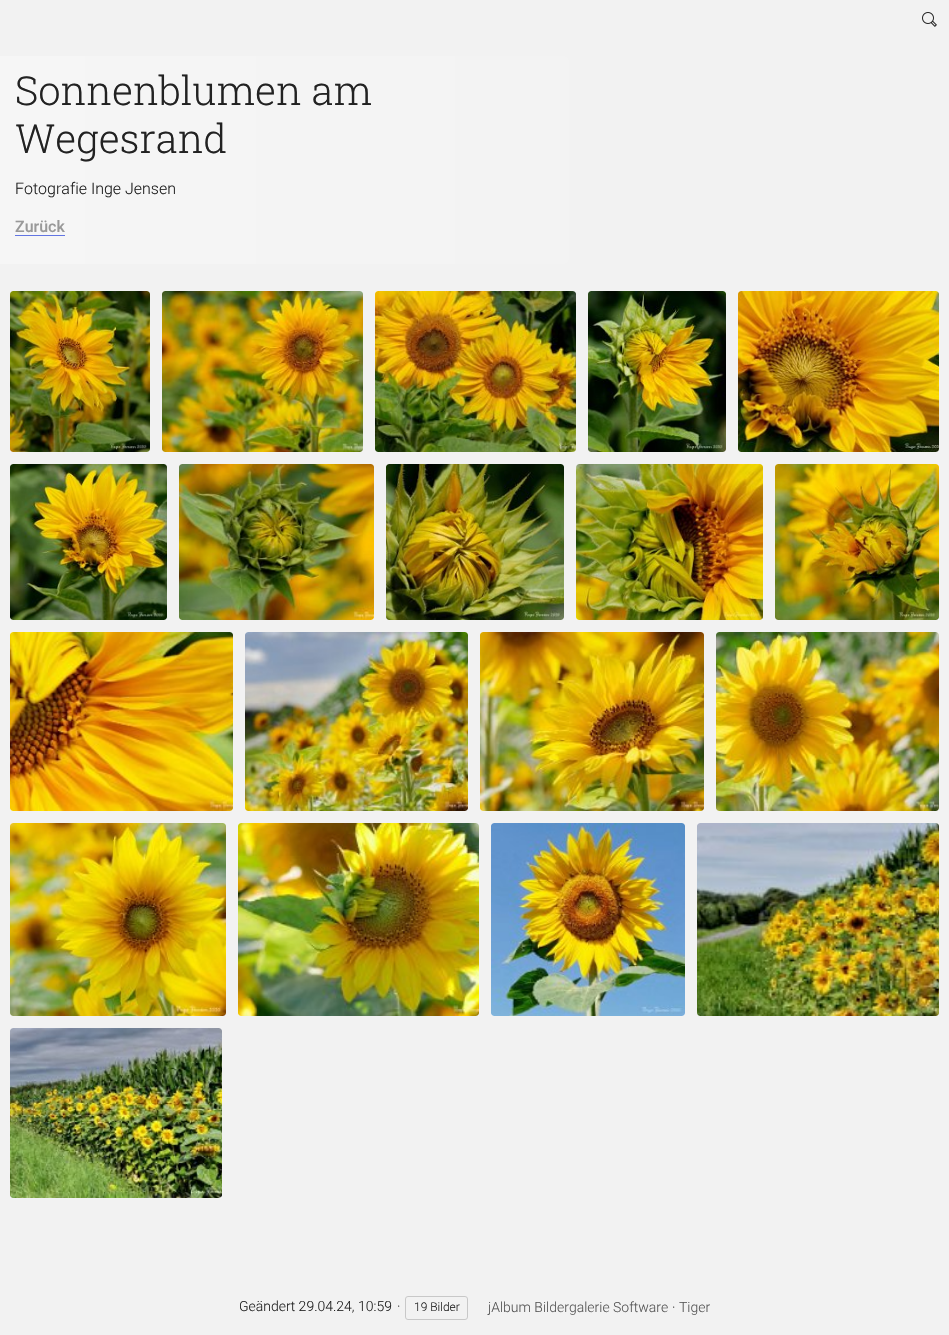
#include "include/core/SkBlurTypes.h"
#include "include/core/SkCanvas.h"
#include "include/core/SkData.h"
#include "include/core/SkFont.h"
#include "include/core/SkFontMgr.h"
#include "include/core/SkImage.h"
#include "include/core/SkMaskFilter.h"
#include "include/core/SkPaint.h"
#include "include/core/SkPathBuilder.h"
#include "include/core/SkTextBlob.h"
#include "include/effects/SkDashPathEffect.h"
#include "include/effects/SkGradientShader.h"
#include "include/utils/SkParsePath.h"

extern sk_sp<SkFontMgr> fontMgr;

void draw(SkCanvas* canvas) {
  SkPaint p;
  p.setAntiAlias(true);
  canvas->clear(SkColorSetRGB(242, 242, 242));
  canvas->drawImageRect(SkImages::DeferredFromEncodedData(SkData::MakeFromFileName("images/1.png")), SkRect::MakeLTRB(922, 12, 937, 27), SkSamplingOptions());
  {
    const SkColor colors[] = {SkColorSetRGB(246, 246, 246), SkColorSetRGB(244, 244, 244), SkColorSetRGB(243, 243, 243)};
    const float stops[] = {0, 0.6f, 1};
    const SkPoint ends[] = {{0, 160}, {569, 160}};
    p.setShader(SkGradientShader::MakeLinear(ends, colors, stops, 3, SkTileMode::kClamp));
    p.setAlpha(255);
  }
  canvas->drawPath(SkPathBuilder().moveTo(0, 56).lineTo(564, 56).cubicTo(567, 56, 569, 58, 569, 61).lineTo(569, 259).cubicTo(569, 262, 567, 264, 564, 264).lineTo(0, 264).close().detach(), p);
  p.setShader(nullptr);
  p.setColor(SkColorSetRGB(98, 117, 226));
  canvas->drawRect(SkRect::MakeLTRB(15, 235, 65, 236), p);
  p.setColor(SK_ColorWHITE);
  canvas->drawRoundRect(SkRect::MakeLTRB(10, 291, 150, 452), 3, 3, p);
  canvas->drawImageRect(SkImages::DeferredFromEncodedData(SkData::MakeFromFileName("images/2.png")), SkRect::MakeLTRB(10, 291, 150, 452), SkSamplingOptions());
  canvas->drawRoundRect(SkRect::MakeLTRB(162, 291, 363, 452), 3, 3, p);
  canvas->drawImageRect(SkImages::DeferredFromEncodedData(SkData::MakeFromFileName("images/3.png")), SkRect::MakeLTRB(162, 291, 363, 452), SkSamplingOptions());
  canvas->drawRoundRect(SkRect::MakeLTRB(375, 291, 576, 452), 3, 3, p);
  canvas->drawImageRect(SkImages::DeferredFromEncodedData(SkData::MakeFromFileName("images/4.png")), SkRect::MakeLTRB(375, 291, 576, 452), SkSamplingOptions());
  canvas->drawRoundRect(SkRect::MakeLTRB(588, 291, 726, 452), 3, 3, p);
  canvas->drawImageRect(SkImages::DeferredFromEncodedData(SkData::MakeFromFileName("images/5.png")), SkRect::MakeLTRB(588, 291, 726, 452), SkSamplingOptions());
  canvas->drawRoundRect(SkRect::MakeLTRB(738, 291, 939, 452), 3, 3, p);
  canvas->drawImageRect(SkImages::DeferredFromEncodedData(SkData::MakeFromFileName("images/6.png")), SkRect::MakeLTRB(738, 291, 939, 452), SkSamplingOptions());
  canvas->drawRoundRect(SkRect::MakeLTRB(10, 464, 167, 620), 3, 3, p);
  canvas->drawImageRect(SkImages::DeferredFromEncodedData(SkData::MakeFromFileName("images/7.png")), SkRect::MakeLTRB(10, 464, 167, 620), SkSamplingOptions());
  canvas->drawRoundRect(SkRect::MakeLTRB(179, 464, 374, 620), 3, 3, p);
  canvas->drawImageRect(SkImages::DeferredFromEncodedData(SkData::MakeFromFileName("images/8.png")), SkRect::MakeLTRB(179, 464, 374, 620), SkSamplingOptions());
  canvas->drawRoundRect(SkRect::MakeLTRB(386, 464, 564, 620), 3, 3, p);
  canvas->drawImageRect(SkImages::DeferredFromEncodedData(SkData::MakeFromFileName("images/9.png")), SkRect::MakeLTRB(386, 464, 564, 620), SkSamplingOptions());
  canvas->drawRoundRect(SkRect::MakeLTRB(576, 464, 763, 620), 3, 3, p);
  canvas->drawImageRect(SkImages::DeferredFromEncodedData(SkData::MakeFromFileName("images/10.png")), SkRect::MakeLTRB(576, 464, 763, 620), SkSamplingOptions());
  canvas->drawRoundRect(SkRect::MakeLTRB(775, 464, 939, 620), 3, 3, p);
  canvas->drawImageRect(SkImages::DeferredFromEncodedData(SkData::MakeFromFileName("images/11.png")), SkRect::MakeLTRB(775, 464, 939, 620), SkSamplingOptions());
  canvas->drawRoundRect(SkRect::MakeLTRB(10, 632, 233, 811), 3, 3, p);
  canvas->drawImageRect(SkImages::DeferredFromEncodedData(SkData::MakeFromFileName("images/12.png")), SkRect::MakeLTRB(10, 632, 233, 811), SkSamplingOptions());
  canvas->drawRoundRect(SkRect::MakeLTRB(245, 632, 468, 811), 3, 3, p);
  canvas->drawImageRect(SkImages::DeferredFromEncodedData(SkData::MakeFromFileName("images/13.png")), SkRect::MakeLTRB(245, 632, 468, 811), SkSamplingOptions());
  canvas->drawRoundRect(SkRect::MakeLTRB(480, 632, 704, 811), 3, 3, p);
  canvas->drawImageRect(SkImages::DeferredFromEncodedData(SkData::MakeFromFileName("images/14.png")), SkRect::MakeLTRB(480, 632, 704, 811), SkSamplingOptions());
  canvas->drawRoundRect(SkRect::MakeLTRB(716, 632, 939, 811), 3, 3, p);
  canvas->drawImageRect(SkImages::DeferredFromEncodedData(SkData::MakeFromFileName("images/15.png")), SkRect::MakeLTRB(716, 632, 939, 811), SkSamplingOptions());
  canvas->drawRoundRect(SkRect::MakeLTRB(10, 823, 226, 1016), 3, 3, p);
  canvas->drawImageRect(SkImages::DeferredFromEncodedData(SkData::MakeFromFileName("images/16.png")), SkRect::MakeLTRB(10, 823, 226, 1016), SkSamplingOptions());
  canvas->drawRoundRect(SkRect::MakeLTRB(238, 823, 479, 1016), 3, 3, p);
  canvas->drawImageRect(SkImages::DeferredFromEncodedData(SkData::MakeFromFileName("images/17.png")), SkRect::MakeLTRB(238, 823, 479, 1016), SkSamplingOptions());
  canvas->drawRoundRect(SkRect::MakeLTRB(491, 823, 685, 1016), 3, 3, p);
  canvas->drawImageRect(SkImages::DeferredFromEncodedData(SkData::MakeFromFileName("images/18.png")), SkRect::MakeLTRB(491, 823, 685, 1016), SkSamplingOptions());
  canvas->drawRoundRect(SkRect::MakeLTRB(697, 823, 939, 1016), 3, 3, p);
  canvas->drawImageRect(SkImages::DeferredFromEncodedData(SkData::MakeFromFileName("images/19.png")), SkRect::MakeLTRB(697, 823, 939, 1016), SkSamplingOptions());
  canvas->drawRoundRect(SkRect::MakeLTRB(10, 1028, 222, 1198), 3, 3, p);
  canvas->drawImageRect(SkImages::DeferredFromEncodedData(SkData::MakeFromFileName("images/20.png")), SkRect::MakeLTRB(10, 1028, 222, 1198), SkSamplingOptions());
  p.setStyle(SkPaint::kStroke_Style);
  p.setStrokeWidth(1);
  p.setColor(SkColorSetRGB(200, 200, 200));
  canvas->drawRoundRect(SkRect::MakeLTRB(405.5f, 1296.5f, 467.5f, 1319.5f), 2.5f, 2.5f, p);
  SkFont font1(fontMgr->matchFamilyStyle("Roboto Slab", SkFontStyle(300, SkFontStyle::kNormal_Width, SkFontStyle::kUpright_Slant)), 40);
  font1.setSubpixel(true);
  p.setStyle(SkPaint::kFill_Style);
  p.setColor(SkColorSetRGB(34, 34, 34));
  canvas->drawString("Sonnenblumen am", 15, 105, font1, p);
  canvas->drawString("Wegesrand", 15, 153, font1, p);
  SkFont font2(fontMgr->matchFamilyStyle("Roboto", SkFontStyle(300, SkFontStyle::kNormal_Width, SkFontStyle::kUpright_Slant)), 16);
  font2.setSubpixel(true);
  canvas->drawString("Fotografie Inge Jensen", 15, 194, font2, p);
  SkFont font3(fontMgr->matchFamilyStyle("Roboto", SkFontStyle(500, SkFontStyle::kNormal_Width, SkFontStyle::kUpright_Slant)), 16);
  font3.setSubpixel(true);
  p.setColor(SkColorSetRGB(153, 153, 153));
  canvas->drawString("Zurück", 15, 232, font3, p);
  SkFont font4(fontMgr->matchFamilyStyle("Roboto", SkFontStyle(300, SkFontStyle::kNormal_Width, SkFontStyle::kUpright_Slant)), 14);
  font4.setSubpixel(true);
  p.setColor(SkColorSetRGB(34, 34, 34));
  canvas->drawString("Geändert 29.04.24, 10:59", 239, 1311, font4, p);
  canvas->drawString("·", 397, 1311, font4, p);
  SkFont font5(fontMgr->matchFamilyStyle("Roboto", SkFontStyle(300, SkFontStyle::kNormal_Width, SkFontStyle::kUpright_Slant)), 12);
  font5.setSubpixel(true);
  canvas->drawString("19 Bilder", 414, 1311, font5, p);
  p.setColor(SkColorSetRGB(86, 86, 86));
  canvas->drawString("jAlbum Bildergalerie Software", 488, 1312, font4, p);
  p.setColor(SkColorSetRGB(34, 34, 34));
  canvas->drawString("·", 672, 1312, font4, p);
  p.setColor(SkColorSetRGB(86, 86, 86));
  canvas->drawString("Tiger", 679, 1312, font4, p);
}
